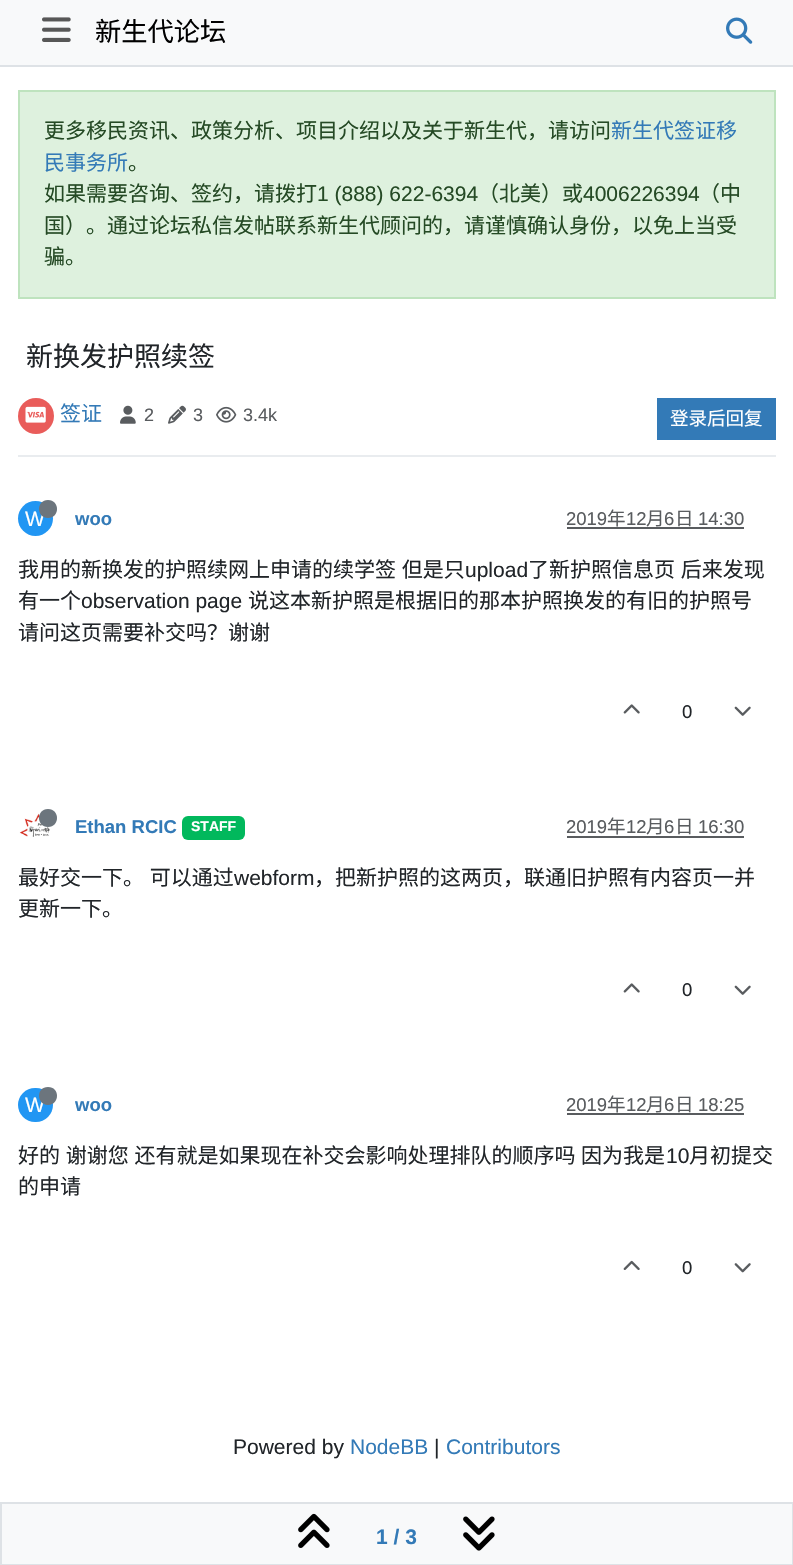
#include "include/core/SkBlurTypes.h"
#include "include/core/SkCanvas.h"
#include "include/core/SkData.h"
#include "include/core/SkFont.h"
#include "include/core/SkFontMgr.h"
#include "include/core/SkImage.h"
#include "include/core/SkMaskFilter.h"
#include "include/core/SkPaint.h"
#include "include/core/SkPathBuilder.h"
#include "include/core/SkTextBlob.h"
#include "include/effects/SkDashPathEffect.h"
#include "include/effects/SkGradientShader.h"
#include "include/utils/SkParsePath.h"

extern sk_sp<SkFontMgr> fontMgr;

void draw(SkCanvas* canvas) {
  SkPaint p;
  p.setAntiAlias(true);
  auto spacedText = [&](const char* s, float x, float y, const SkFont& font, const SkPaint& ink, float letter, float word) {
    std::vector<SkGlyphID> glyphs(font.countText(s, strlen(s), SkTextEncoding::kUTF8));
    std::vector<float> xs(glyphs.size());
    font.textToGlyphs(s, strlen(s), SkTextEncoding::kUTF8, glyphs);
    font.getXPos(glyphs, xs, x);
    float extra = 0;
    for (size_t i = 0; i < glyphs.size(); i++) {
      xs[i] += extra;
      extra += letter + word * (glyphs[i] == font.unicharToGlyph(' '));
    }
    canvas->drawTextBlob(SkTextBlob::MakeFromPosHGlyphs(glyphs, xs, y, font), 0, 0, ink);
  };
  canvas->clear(SK_ColorWHITE);
  p.setColor(SkColorSetRGB(248, 249, 250));
  canvas->drawRect(SkRect::MakeLTRB(0, 0, 793, 65), p);
  p.setColor(SkColorSetRGB(222, 226, 230));
  canvas->drawRect(SkRect::MakeLTRB(0, 65, 793, 67), p);
  canvas->drawImageRect(SkImages::DeferredFromEncodedData(SkData::MakeFromFileName("images/1.png")), SkRect::MakeLTRB(42, 17, 71, 42), SkSamplingOptions());
  canvas->drawImageRect(SkImages::DeferredFromEncodedData(SkData::MakeFromFileName("images/2.png")), SkRect::MakeLTRB(726, 17, 753, 44), SkSamplingOptions());
  p.setColor(SkColorSetRGB(222, 241, 222));
  canvas->drawRect(SkRect::MakeLTRB(19, 91, 775, 298), p);
  p.setStyle(SkPaint::kStroke_Style);
  p.setStrokeWidth(2);
  p.setColor(SkColorSetRGB(190, 227, 190));
  canvas->drawRect(SkRect::MakeLTRB(19, 91, 775, 298), p);
  p.setStyle(SkPaint::kFill_Style);
  p.setColor(SkColorSetRGB(233, 236, 239));
  canvas->drawRect(SkRect::MakeLTRB(18, 455, 776, 457), p);
  p.setColor(SkColorSetRGB(233, 92, 90));
  canvas->drawCircle(36, 416, 18, p);
  canvas->drawImageRect(SkImages::DeferredFromEncodedData(SkData::MakeFromFileName("images/3.png")), SkRect::MakeLTRB(25, 406, 46, 423), SkSamplingOptions());
  canvas->drawImageRect(SkImages::DeferredFromEncodedData(SkData::MakeFromFileName("images/4.png")), SkRect::MakeLTRB(120, 405, 136, 424), SkSamplingOptions());
  canvas->drawImageRect(SkImages::DeferredFromEncodedData(SkData::MakeFromFileName("images/5.png")), SkRect::MakeLTRB(168, 405, 186, 424), SkSamplingOptions());
  canvas->drawImageRect(SkImages::DeferredFromEncodedData(SkData::MakeFromFileName("images/6.png")), SkRect::MakeLTRB(216, 406, 237, 423), SkSamplingOptions());
  p.setColor(SkColorSetRGB(51, 122, 183));
  canvas->drawRect(SkRect::MakeLTRB(657, 398, 776, 440), p);
  p.setColor(SkColorSetRGB(33, 150, 243));
  canvas->drawCircle(35.5f, 518.5f, 17.5f, p);
  p.setColor(SkColorSetRGB(89, 92, 95));
  canvas->drawRect(SkRect::MakeLTRB(567, 527, 744, 529), p);
  canvas->drawImageRect(SkImages::DeferredFromEncodedData(SkData::MakeFromFileName("images/7.png")), SkRect::MakeLTRB(623, 704, 640, 714), SkSamplingOptions());
  canvas->drawImageRect(SkImages::DeferredFromEncodedData(SkData::MakeFromFileName("images/8.png")), SkRect::MakeLTRB(734, 706, 751, 716), SkSamplingOptions());
  canvas->drawImageRect(SkImages::DeferredFromEncodedData(SkData::MakeFromFileName("images/9.png")), SkRect::MakeLTRB(19, 813, 50, 837), SkSamplingOptions());
  p.setColor(SkColorSetRGB(108, 117, 125));
  canvas->drawPath(SkPathBuilder().moveTo(48, 827).cubicTo(60, 827, 60, 809, 48, 809).cubicTo(36, 809, 36, 827, 48, 827).close().detach(), p);
  p.setColor(SkColorSetRGB(1, 184, 92));
  canvas->drawRoundRect(SkRect::MakeLTRB(182, 816, 245, 840), 6, 6, p);
  p.setColor(SkColorSetRGB(89, 92, 95));
  canvas->drawRect(SkRect::MakeLTRB(567, 836, 744, 838), p);
  canvas->drawImageRect(SkImages::DeferredFromEncodedData(SkData::MakeFromFileName("images/7.png")), SkRect::MakeLTRB(623, 983, 640, 993), SkSamplingOptions());
  canvas->drawImageRect(SkImages::DeferredFromEncodedData(SkData::MakeFromFileName("images/8.png")), SkRect::MakeLTRB(734, 985, 751, 995), SkSamplingOptions());
  p.setColor(SkColorSetRGB(33, 150, 243));
  canvas->drawRoundRect(SkRect::MakeLTRB(18, 1088, 53, 1122), 17, 17, p);
  p.setColor(SkColorSetRGB(89, 92, 95));
  canvas->drawRect(SkRect::MakeLTRB(567, 1113, 744, 1115), p);
  canvas->drawImageRect(SkImages::DeferredFromEncodedData(SkData::MakeFromFileName("images/10.png")), SkRect::MakeLTRB(623, 1260, 640, 1270), SkSamplingOptions());
  canvas->drawImageRect(SkImages::DeferredFromEncodedData(SkData::MakeFromFileName("images/11.png")), SkRect::MakeLTRB(734, 1263, 751, 1273), SkSamplingOptions());
  p.setColor(SkColorSetRGB(248, 249, 250));
  canvas->drawRect(SkRect::MakeLTRB(1, 1503, 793, 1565), p);
  p.setStyle(SkPaint::kStroke_Style);
  p.setColor(SkColorSetRGB(222, 226, 230));
  canvas->drawRect(SkRect::MakeLTRB(1, 1503, 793, 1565), p);
  canvas->drawImageRect(SkImages::DeferredFromEncodedData(SkData::MakeFromFileName("images/12.png")), SkRect::MakeLTRB(298, 1513, 330, 1548), SkSamplingOptions());
  canvas->drawImageRect(SkImages::DeferredFromEncodedData(SkData::MakeFromFileName("images/13.png")), SkRect::MakeLTRB(463, 1516, 495, 1551), SkSamplingOptions());
  SkFont font1(fontMgr->matchFamilyStyle("Noto Sans CJK SC", SkFontStyle::Normal()), 26.25f);
  font1.setSubpixel(true);
  p.setStyle(SkPaint::kFill_Style);
  p.setColor(SK_ColorBLACK);
  canvas->drawString("新生代论坛", 95, 41, font1, p);
  SkFont font2(fontMgr->matchFamilyStyle("Noto Sans CJK SC", SkFontStyle::Normal()), 21);
  font2.setSubpixel(true);
  p.setColor(SkColorSetRGB(37, 74, 37));
  canvas->drawString("更多移民资讯、政策分析、项目介绍以及关于新生代，请访问", 44, 138, font2, p);
  p.setColor(SkColorSetRGB(51, 122, 183));
  canvas->drawString("新生代签证移", 611, 138, font2, p);
  canvas->drawString("民事务所", 44, 170, font2, p);
  p.setColor(SkColorSetRGB(37, 74, 37));
  canvas->drawString("。", 128, 170, font2, p);
  canvas->drawString("如果需要咨询、签约，请拨打", 44, 201, font2, p);
  SkFont font3(fontMgr->matchFamilyStyle("Liberation Sans", SkFontStyle::Normal()), 21);
  font3.setSubpixel(true);
  canvas->drawString("1 (888) 622-6394", 317, 201, font3, p);
  canvas->drawString("（北美）或", 478, 201, font2, p);
  canvas->drawString("4006226394", 583, 201, font3, p);
  canvas->drawString("（中", 699, 201, font2, p);
  canvas->drawString("国）。通过论坛私信发帖联系新生代顾问的，请谨慎确认身份，以免上当受", 44, 233, font2, p);
  canvas->drawString("骗。", 44, 264, font2, p);
  SkFont font4(fontMgr->matchFamilyStyle("Noto Sans CJK SC", SkFontStyle::Normal()), 27);
  font4.setSubpixel(true);
  p.setColor(SkColorSetRGB(33, 37, 41));
  canvas->drawString("新换发护照续签", 26, 366, font4, p);
  p.setColor(SkColorSetRGB(51, 122, 183));
  canvas->drawString("签证", 60, 421, font2, p);
  SkFont font5(fontMgr->matchFamilyStyle("Liberation Sans", SkFontStyle::Normal()), 18);
  font5.setSubpixel(true);
  p.setColor(SkColorSetRGB(89, 92, 95));
  canvas->drawString("2", 144, 421, font5, p);
  canvas->drawString("3", 193, 421, font5, p);
  canvas->drawString("3.4k", 243, 421, font5, p);
  SkFont font6(fontMgr->matchFamilyStyle("Noto Sans CJK SC", SkFontStyle::Normal()), 18.5f);
  font6.setSubpixel(true);
  p.setColor(SK_ColorWHITE);
  canvas->drawString("登录后回复", 670, 425, font6, p);
  canvas->drawString("W", 25, 526, font3, p);
  p.setColor(SkColorSetRGB(108, 117, 125));
  canvas->drawPath(SkPathBuilder().moveTo(48, 518).cubicTo(60, 518, 60, 500, 48, 500).cubicTo(36, 500, 36, 518, 48, 518).close().detach(), p);
  SkFont font7(fontMgr->matchFamilyStyle("Liberation Sans", SkFontStyle::Bold()), 18.5f);
  font7.setSubpixel(true);
  p.setColor(SkColorSetRGB(51, 122, 183));
  canvas->drawString("woo", 75, 525, font7, p);
  SkFont font8(fontMgr->matchFamilyStyle("Liberation Sans", SkFontStyle::Normal()), 18.5f);
  font8.setSubpixel(true);
  p.setColor(SkColorSetRGB(89, 92, 95));
  canvas->drawString("2019", 566, 525, font8, p);
  canvas->drawString("年", 607, 525, font6, p);
  canvas->drawString("12", 626, 525, font8, p);
  canvas->drawString("月", 646, 525, font6, p);
  canvas->drawString("6", 664, 525, font8, p);
  canvas->drawString("日", 675, 525, font6, p);
  canvas->drawString("14:30", 698, 525, font8, p);
  p.setColor(SkColorSetRGB(33, 37, 41));
  spacedText("我用的新换发的护照续网上申请的续学签 但是只", 18, 577, font2, p, 0, 1);
  canvas->drawString("upload", 465, 577, font3, p);
  spacedText("了新护照信息页 后来发现", 528, 577, font2, p, 0, 1);
  canvas->drawString("有一个", 18, 608, font2, p);
  canvas->drawString("observation page", 81, 608, font3, p);
  canvas->drawString("说这本新护照是根据旧的那本护照换发的有旧的护照号", 248, 608, font2, p);
  canvas->drawString("请问这页需要补交吗？谢谢", 18, 640, font2, p);
  canvas->drawString("0", 682, 718, font8, p);
  p.setColor(SkColorSetRGB(51, 122, 183));
  canvas->drawString("Ethan RCIC", 75, 833, font7, p);
  SkFont font9(fontMgr->matchFamilyStyle("Liberation Sans", SkFontStyle::Bold()), 14);
  font9.setSubpixel(true);
  p.setColor(SK_ColorWHITE);
  canvas->drawString("STAFF", 191, 831, font9, p);
  p.setColor(SkColorSetRGB(89, 92, 95));
  canvas->drawString("2019", 566, 833, font8, p);
  canvas->drawString("年", 607, 833, font6, p);
  canvas->drawString("12", 626, 833, font8, p);
  canvas->drawString("月", 646, 833, font6, p);
  canvas->drawString("6", 664, 833, font8, p);
  canvas->drawString("日", 675, 833, font6, p);
  canvas->drawString("16:30", 698, 833, font8, p);
  p.setColor(SkColorSetRGB(33, 37, 41));
  spacedText("最好交一下。 可以通过", 18, 885, font2, p, 0, 1);
  canvas->drawString("webform", 234, 885, font3, p);
  canvas->drawString("，把新护照的这两页，联通旧护照有内容页一并", 314, 885, font2, p);
  canvas->drawString("更新一下。", 18, 916, font2, p);
  canvas->drawString("0", 682, 996, font8, p);
  p.setColor(SK_ColorWHITE);
  canvas->drawString("W", 25, 1112, font3, p);
  p.setColor(SkColorSetRGB(108, 117, 125));
  canvas->drawPath(SkPathBuilder().moveTo(48, 1105).cubicTo(60, 1104.5f, 60, 1087, 48, 1087).cubicTo(36, 1087, 36, 1104.5f, 48, 1105).close().detach(), p);
  p.setColor(SkColorSetRGB(51, 122, 183));
  canvas->drawString("woo", 75, 1111, font7, p);
  p.setColor(SkColorSetRGB(89, 92, 95));
  canvas->drawString("2019", 566, 1111, font8, p);
  canvas->drawString("年", 607, 1111, font6, p);
  canvas->drawString("12", 626, 1111, font8, p);
  canvas->drawString("月", 646, 1111, font6, p);
  canvas->drawString("6", 664, 1111, font8, p);
  canvas->drawString("日", 675, 1111, font6, p);
  canvas->drawString("18:25", 698, 1111, font8, p);
  p.setColor(SkColorSetRGB(33, 37, 41));
  spacedText("好的 谢谢您 还有就是如果现在补交会影响处理排队的顺序吗 因为我是", 18, 1163, font2, p, 0, 1);
  canvas->drawString("10", 666, 1163, font3, p);
  canvas->drawString("月初提交", 689, 1163, font2, p);
  canvas->drawString("的申请", 18, 1194, font2, p);
  canvas->drawString("0", 682, 1274, font8, p);
  SkFont font10(fontMgr->matchFamilyStyle("Liberation Sans", SkFontStyle::Bold()), 21);
  font10.setSubpixel(true);
  p.setColor(SkColorSetRGB(51, 122, 183));
  canvas->drawString("1 / 3", 376, 1544, font10, p);
  p.setColor(SkColorSetRGB(33, 37, 41));
  canvas->drawString("Powered by", 233, 1454, font3, p);
  p.setColor(SkColorSetRGB(51, 122, 183));
  canvas->drawString("NodeBB", 350, 1454, font3, p);
  p.setColor(SkColorSetRGB(33, 37, 41));
  canvas->drawString("|", 434, 1454, font3, p);
  p.setColor(SkColorSetRGB(51, 122, 183));
  canvas->drawString("Contributors", 446, 1454, font3, p);
}
